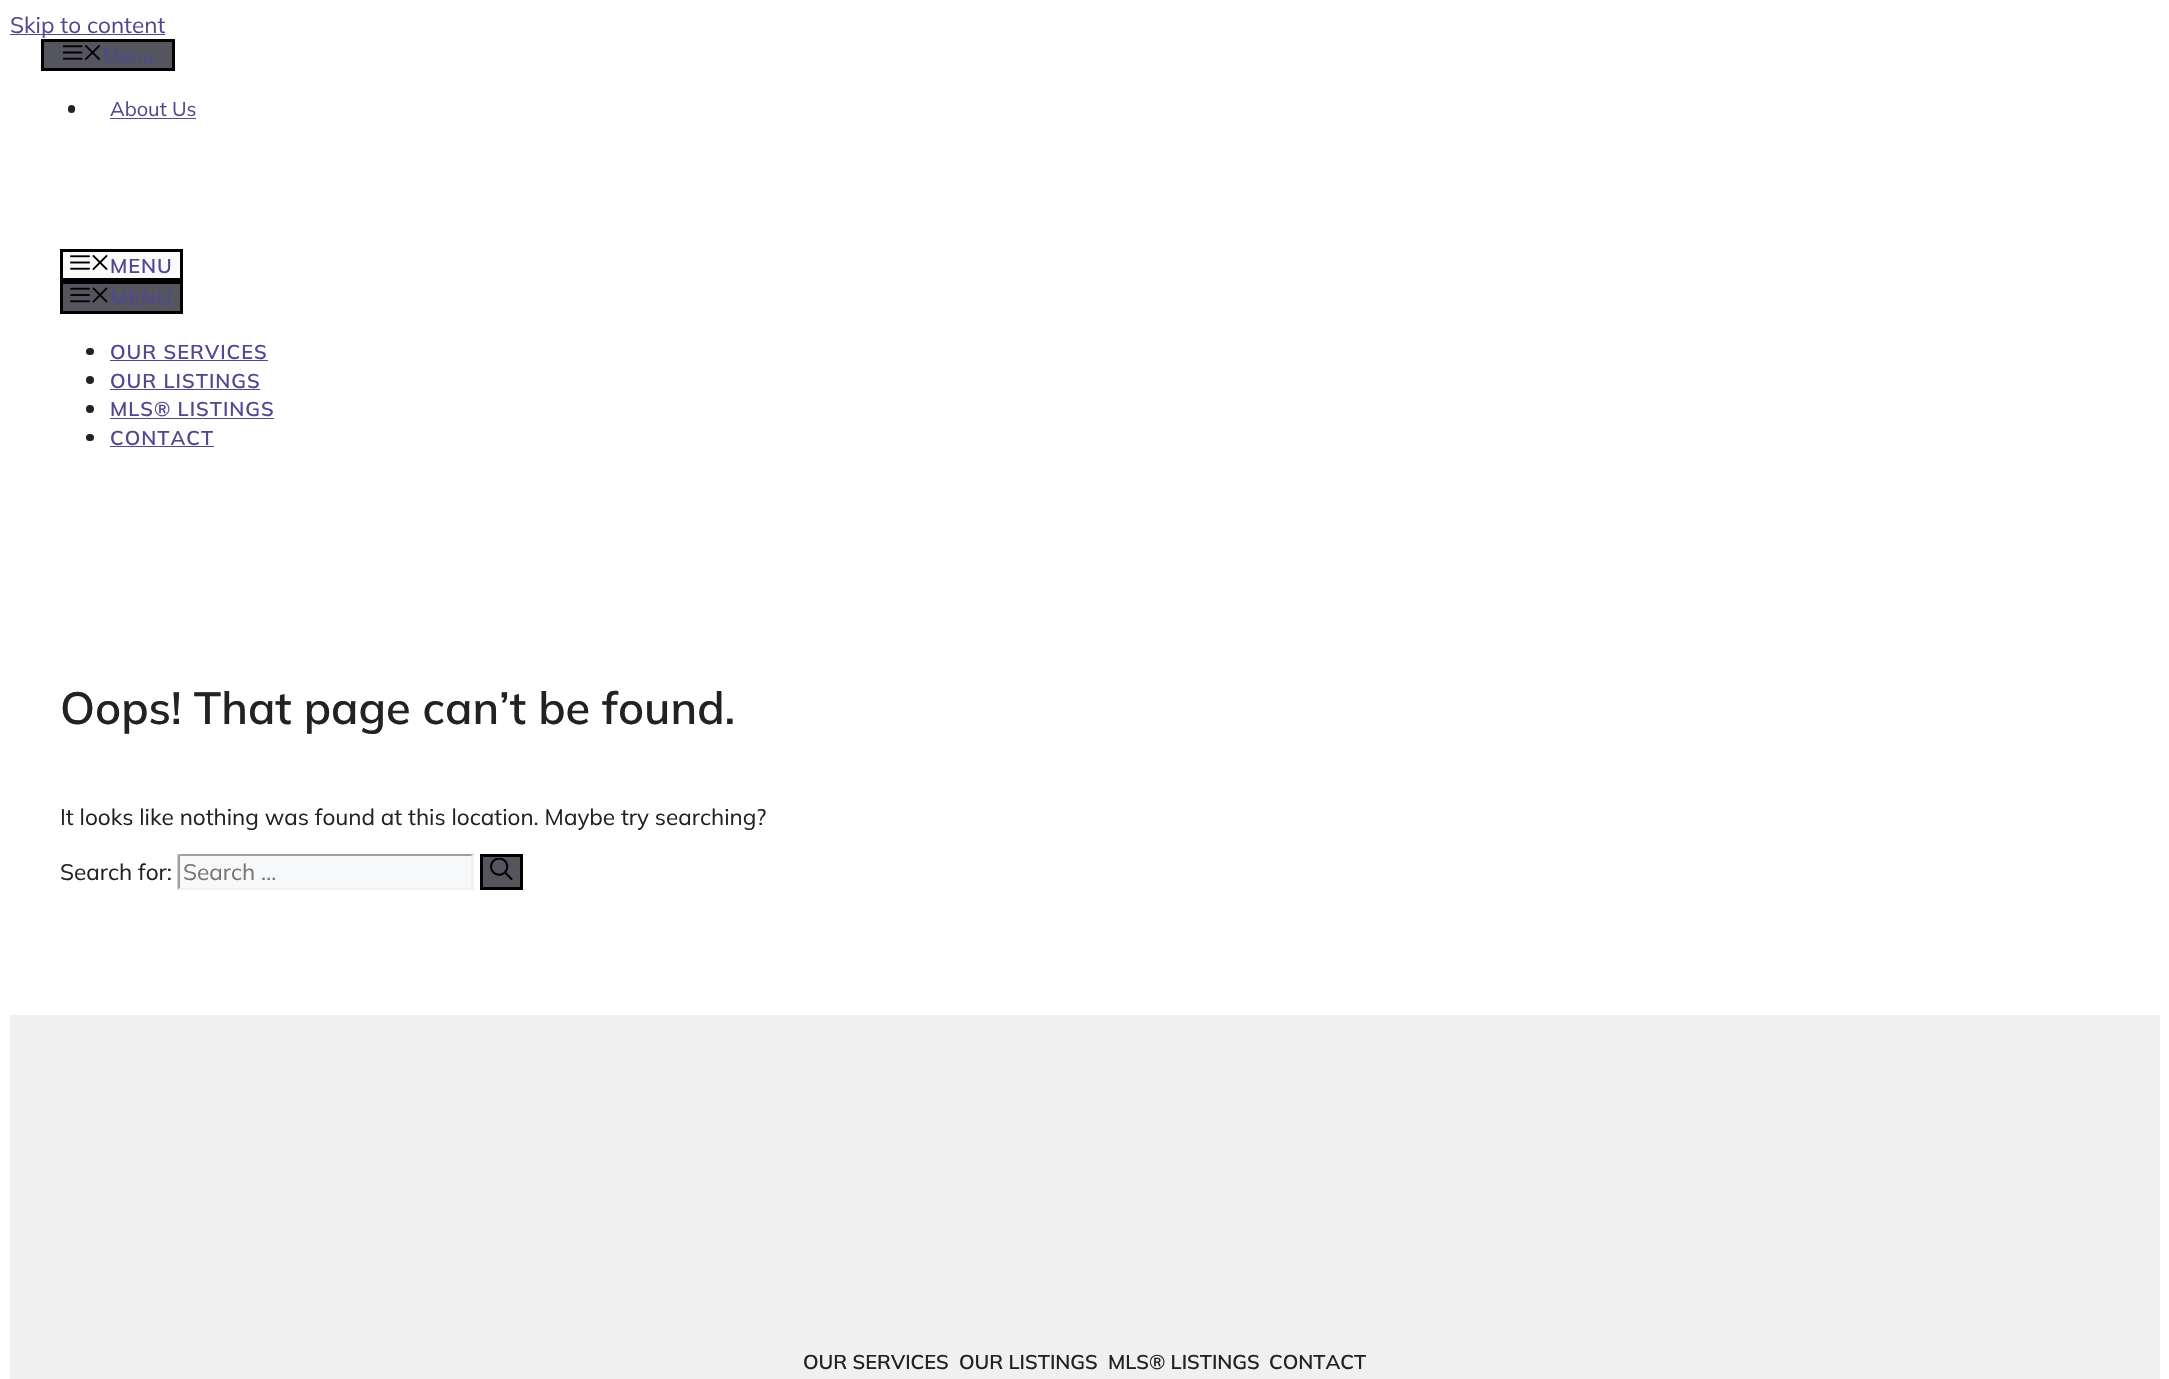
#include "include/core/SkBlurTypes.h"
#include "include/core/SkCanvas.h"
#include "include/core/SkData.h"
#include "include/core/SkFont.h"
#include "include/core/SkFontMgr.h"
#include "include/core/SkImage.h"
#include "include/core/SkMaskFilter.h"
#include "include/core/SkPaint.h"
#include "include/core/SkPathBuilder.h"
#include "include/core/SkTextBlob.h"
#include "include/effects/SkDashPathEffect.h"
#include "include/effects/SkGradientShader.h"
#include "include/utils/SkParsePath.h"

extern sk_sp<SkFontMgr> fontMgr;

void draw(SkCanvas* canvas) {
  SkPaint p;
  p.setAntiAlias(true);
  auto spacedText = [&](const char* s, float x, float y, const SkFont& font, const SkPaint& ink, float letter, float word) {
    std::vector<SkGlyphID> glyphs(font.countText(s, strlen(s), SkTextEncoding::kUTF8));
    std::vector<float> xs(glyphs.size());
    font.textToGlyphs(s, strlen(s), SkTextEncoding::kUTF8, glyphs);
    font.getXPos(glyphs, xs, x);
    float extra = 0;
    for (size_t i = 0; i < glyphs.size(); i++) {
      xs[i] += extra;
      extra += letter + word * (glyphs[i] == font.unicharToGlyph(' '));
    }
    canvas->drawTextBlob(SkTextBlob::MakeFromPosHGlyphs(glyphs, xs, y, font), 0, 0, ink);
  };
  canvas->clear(SK_ColorWHITE);
  p.setColor(SkColorSetRGB(82, 71, 145));
  canvas->drawRect(SkRect::MakeLTRB(10, 34, 165, 35), p);
  p.setColor(SkColorSetRGB(85, 85, 94));
  canvas->drawRect(SkRect::MakeLTRB(42.5f, 40.5f, 173.5f, 69.5f), p);
  p.setStyle(SkPaint::kStroke_Style);
  p.setStrokeWidth(3);
  p.setColor(SK_ColorBLACK);
  canvas->drawRect(SkRect::MakeLTRB(42.5f, 40.5f, 173.5f, 69.5f), p);
  canvas->drawImageRect(SkImages::DeferredFromEncodedData(SkData::MakeFromFileName("images/1.png")), SkRect::MakeLTRB(63, 45, 83, 60), SkSamplingOptions());
  canvas->drawImageRect(SkImages::DeferredFromEncodedData(SkData::MakeFromFileName("images/2.png")), SkRect::MakeLTRB(85, 45, 100, 60), SkSamplingOptions());
  p.setStyle(SkPaint::kFill_Style);
  p.setColor(SkColorSetRGB(34, 34, 34));
  canvas->drawRoundRect(SkRect::MakeLTRB(68, 105, 75, 113), 3.5f, 3.5f, p);
  p.setColor(SkColorSetRGB(82, 71, 145));
  canvas->drawRect(SkRect::MakeLTRB(110, 118, 196, 119), p);
  p.setColor(SkColorSetRGB(250, 250, 250));
  canvas->drawRect(SkRect::MakeLTRB(61.5f, 250.5f, 181.5f, 279.5f), p);
  p.setStyle(SkPaint::kStroke_Style);
  p.setColor(SK_ColorBLACK);
  canvas->drawRect(SkRect::MakeLTRB(61.5f, 250.5f, 181.5f, 279.5f), p);
  canvas->drawImageRect(SkImages::DeferredFromEncodedData(SkData::MakeFromFileName("images/3.png")), SkRect::MakeLTRB(70, 255, 90, 270), SkSamplingOptions());
  canvas->drawImageRect(SkImages::DeferredFromEncodedData(SkData::MakeFromFileName("images/4.png")), SkRect::MakeLTRB(92, 255, 108, 270), SkSamplingOptions());
  p.setStyle(SkPaint::kFill_Style);
  p.setColor(SkColorSetRGB(85, 85, 94));
  canvas->drawRect(SkRect::MakeLTRB(61.5f, 282.5f, 181.5f, 312.5f), p);
  p.setStyle(SkPaint::kStroke_Style);
  p.setColor(SK_ColorBLACK);
  canvas->drawRect(SkRect::MakeLTRB(61.5f, 282.5f, 181.5f, 312.5f), p);
  canvas->drawImageRect(SkImages::DeferredFromEncodedData(SkData::MakeFromFileName("images/5.png")), SkRect::MakeLTRB(70, 287, 90, 303), SkSamplingOptions());
  canvas->drawImageRect(SkImages::DeferredFromEncodedData(SkData::MakeFromFileName("images/6.png")), SkRect::MakeLTRB(92, 287, 108, 303), SkSamplingOptions());
  p.setStyle(SkPaint::kFill_Style);
  p.setColor(SkColorSetRGB(34, 34, 34));
  canvas->drawRoundRect(SkRect::MakeLTRB(86, 348, 94, 355), 3.5f, 3.5f, p);
  p.setColor(SkColorSetRGB(82, 71, 145));
  canvas->drawRect(SkRect::MakeLTRB(110, 360, 268, 361), p);
  p.setColor(SkColorSetRGB(34, 34, 34));
  canvas->drawCircle(90, 380, 4, p);
  p.setColor(SkColorSetRGB(82, 71, 145));
  canvas->drawRect(SkRect::MakeLTRB(110, 389, 260, 390), p);
  p.setColor(SkColorSetRGB(34, 34, 34));
  canvas->drawCircle(90, 409, 4, p);
  p.setColor(SkColorSetRGB(82, 71, 145));
  canvas->drawRect(SkRect::MakeLTRB(110, 418, 274, 419), p);
  p.setColor(SkColorSetRGB(34, 34, 34));
  canvas->drawRoundRect(SkRect::MakeLTRB(86, 434, 94, 441), 3.5f, 3.5f, p);
  p.setColor(SkColorSetRGB(82, 71, 145));
  canvas->drawRect(SkRect::MakeLTRB(110, 446, 214, 447), p);
  p.setColor(SkColorSetRGB(247, 248, 249));
  canvas->drawRect(SkRect::MakeLTRB(178, 854, 474, 890), p);
  p.setColor(SkColorSetRGB(160, 160, 160));
  canvas->drawPath(SkPathBuilder().moveTo(178, 854).lineTo(474, 854).lineTo(471, 856).lineTo(180, 856).close().detach(), p);
  p.setColor(SkColorSetRGB(240, 240, 240));
  canvas->drawPath(SkPathBuilder().moveTo(474, 854).lineTo(474, 890).lineTo(471, 887.5f).lineTo(471, 856).close().detach(), p);
  canvas->drawPath(SkPathBuilder().moveTo(474, 890).lineTo(178, 890).lineTo(180, 888).lineTo(471, 888).close().detach(), p);
  p.setColor(SkColorSetRGB(160, 160, 160));
  canvas->drawPath(SkPathBuilder().moveTo(177.5f, 890).lineTo(177.5f, 854).lineTo(180, 856).lineTo(180, 887.5f).close().detach(), p);
  p.setColor(SkColorSetRGB(85, 85, 94));
  canvas->drawRect(SkRect::MakeLTRB(481.5f, 855.5f, 521.5f, 888.5f), p);
  p.setStyle(SkPaint::kStroke_Style);
  p.setColor(SK_ColorBLACK);
  canvas->drawRect(SkRect::MakeLTRB(481.5f, 855.5f, 521.5f, 888.5f), p);
  canvas->drawImageRect(SkImages::DeferredFromEncodedData(SkData::MakeFromFileName("images/7.png")), SkRect::MakeLTRB(490, 858, 513, 880), SkSamplingOptions());
  p.setStyle(SkPaint::kFill_Style);
  p.setColor(SkColorSetRGB(240, 240, 240));
  canvas->drawRect(SkRect::MakeLTRB(10, 1015, 2160, 1379), p);
  SkFont font1(fontMgr->matchFamilyStyle("Mulish", SkFontStyle::Normal()), 22.5f);
  font1.setSubpixel(true);
  p.setColor(SkColorSetRGB(82, 71, 145));
  canvas->drawString("Skip to content", 10, 33, font1, p);
  SkFont font2(fontMgr->matchFamilyStyle("Mulish", SkFontStyle::Normal()), 20);
  font2.setSubpixel(true);
  canvas->drawString("Menu", 103, 63, font2, p);
  canvas->drawString("About Us", 110, 116, font2, p);
  SkFont font3(fontMgr->matchFamilyStyle("Mulish", SkFontStyle(600, SkFontStyle::kNormal_Width, SkFontStyle::kUpright_Slant)), 20);
  font3.setSubpixel(true);
  spacedText("MENU", 110, 273, font3, p, 1, 0);
  spacedText("MENU", 110, 305, font3, p, 1, 0);
  spacedText("OUR SERVICES", 110, 359, font3, p, 1, 0);
  spacedText("OUR LISTINGS", 110, 388, font3, p, 1, 0);
  spacedText("MLS® LISTINGS", 110, 416, font3, p, 1, 0);
  spacedText("CONTACT", 110, 445, font3, p, 1, 0);
  SkFont font4(fontMgr->matchFamilyStyle("Mulish", SkFontStyle(600, SkFontStyle::kNormal_Width, SkFontStyle::kUpright_Slant)), 45);
  font4.setSubpixel(true);
  p.setColor(SkColorSetRGB(34, 34, 34));
  canvas->drawString("Oops! That page can’t be found.", 60, 724, font4, p);
  canvas->drawString("It looks like nothing was found at this location. Maybe try searching?", 60, 825, font1, p);
  canvas->drawString("Search for:", 60, 880, font1, p);
  p.setColor(SkColorSetRGB(117, 117, 117));
  canvas->drawString("Search …", 183, 880, font1, p);
  p.setColor(SkColorSetRGB(34, 34, 34));
  canvas->drawString("OUR SERVICES", 803, 1369, font3, p);
  canvas->drawString("OUR LISTINGS", 959, 1369, font3, p);
  canvas->drawString("MLS® LISTINGS", 1108, 1369, font3, p);
  canvas->drawString("CONTACT", 1269, 1369, font3, p);
}
